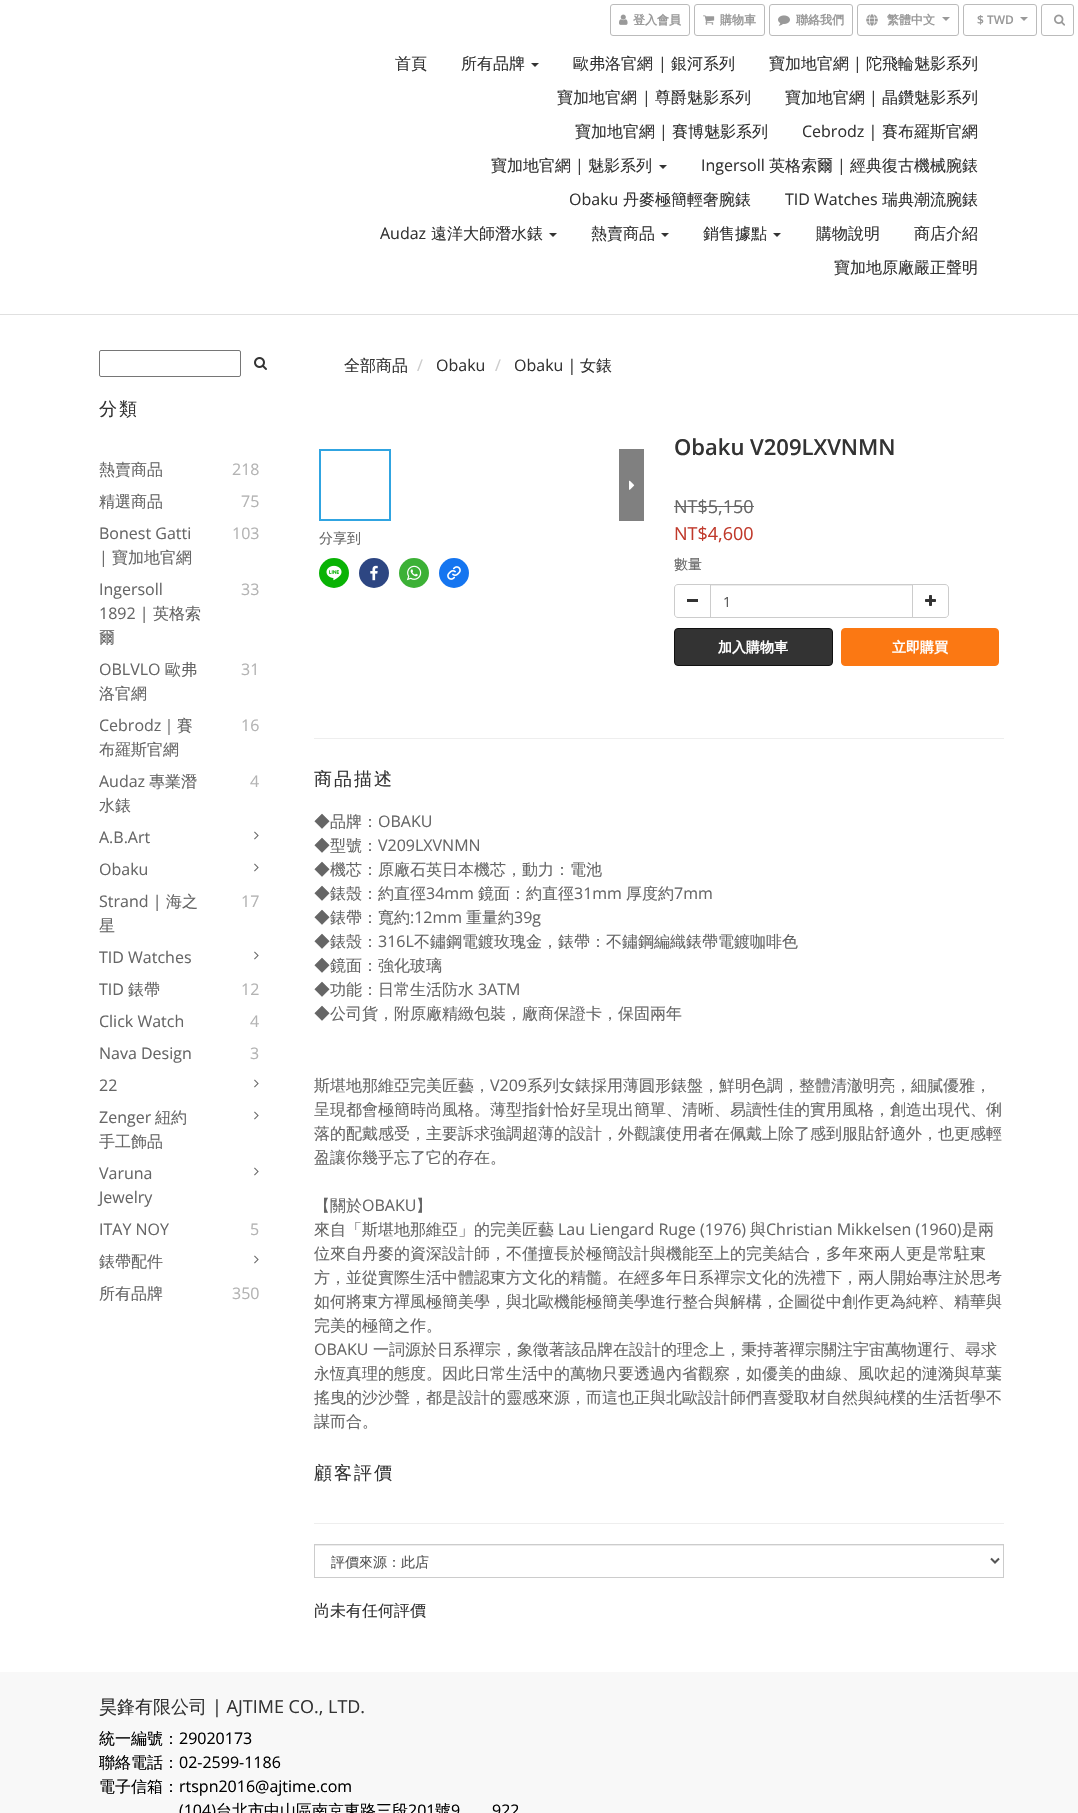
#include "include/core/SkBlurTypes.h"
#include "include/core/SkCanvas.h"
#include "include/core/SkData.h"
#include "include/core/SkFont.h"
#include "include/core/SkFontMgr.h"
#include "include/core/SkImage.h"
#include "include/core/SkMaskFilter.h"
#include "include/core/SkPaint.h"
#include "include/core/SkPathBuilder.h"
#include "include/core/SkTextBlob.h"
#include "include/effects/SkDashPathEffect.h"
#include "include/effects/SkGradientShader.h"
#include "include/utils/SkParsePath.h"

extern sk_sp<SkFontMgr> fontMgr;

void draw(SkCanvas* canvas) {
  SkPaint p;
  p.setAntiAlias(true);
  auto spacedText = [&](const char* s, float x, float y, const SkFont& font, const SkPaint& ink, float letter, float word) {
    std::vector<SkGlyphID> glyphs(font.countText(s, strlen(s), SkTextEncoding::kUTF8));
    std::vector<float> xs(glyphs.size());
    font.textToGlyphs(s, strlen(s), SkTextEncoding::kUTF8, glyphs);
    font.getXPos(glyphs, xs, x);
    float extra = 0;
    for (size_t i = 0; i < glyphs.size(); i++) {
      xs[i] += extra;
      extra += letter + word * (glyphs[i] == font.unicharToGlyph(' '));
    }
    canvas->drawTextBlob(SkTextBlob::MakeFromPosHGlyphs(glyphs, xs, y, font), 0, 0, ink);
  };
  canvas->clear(SK_ColorWHITE);
  p.setStyle(SkPaint::kStroke_Style);
  p.setStrokeWidth(1);
  p.setColor(SkColorSetRGB(187, 187, 187));
  canvas->drawRoundRect(SkRect::MakeLTRB(610.5f, 4.5f, 689.5f, 35.5f), 2.5f, 2.5f, p);
  canvas->drawImageRect(SkImages::DeferredFromEncodedData(SkData::MakeFromFileName("images/1.png")), SkRect::MakeLTRB(619, 14, 628, 25), SkSamplingOptions());
  canvas->drawRoundRect(SkRect::MakeLTRB(694.5f, 4.5f, 764.5f, 35.5f), 2.5f, 2.5f, p);
  canvas->drawImageRect(SkImages::DeferredFromEncodedData(SkData::MakeFromFileName("images/2.png")), SkRect::MakeLTRB(703, 15, 715, 25), SkSamplingOptions());
  canvas->drawRoundRect(SkRect::MakeLTRB(769.5f, 4.5f, 852.5f, 35.5f), 2.5f, 2.5f, p);
  canvas->drawImageRect(SkImages::DeferredFromEncodedData(SkData::MakeFromFileName("images/3.png")), SkRect::MakeLTRB(778, 15, 790, 26), SkSamplingOptions());
  canvas->drawRoundRect(SkRect::MakeLTRB(857.5f, 4.5f, 958.5f, 35.5f), 2.5f, 2.5f, p);
  canvas->drawImageRect(SkImages::DeferredFromEncodedData(SkData::MakeFromFileName("images/4.png")), SkRect::MakeLTRB(866, 14, 878, 26), SkSamplingOptions());
  p.setStyle(SkPaint::kFill_Style);
  p.setColor(SkColorSetRGB(153, 153, 153));
  canvas->drawPath(SkPathBuilder().moveTo(942, 17).lineTo(950, 17).lineTo(946, 21).close().detach(), p);
  p.setStyle(SkPaint::kStroke_Style);
  p.setColor(SkColorSetRGB(187, 187, 187));
  canvas->drawRoundRect(SkRect::MakeLTRB(963.5f, 4.5f, 1036.5f, 35.5f), 2.5f, 2.5f, p);
  p.setStyle(SkPaint::kFill_Style);
  p.setColor(SkColorSetRGB(153, 153, 153));
  canvas->drawPath(SkPathBuilder().moveTo(1020, 17).lineTo(1028, 17).lineTo(1024, 21).close().detach(), p);
  p.setStyle(SkPaint::kStroke_Style);
  p.setColor(SkColorSetRGB(187, 187, 187));
  canvas->drawRoundRect(SkRect::MakeLTRB(1041.5f, 4.5f, 1073.5f, 35.5f), 2.5f, 2.5f, p);
  canvas->drawImageRect(SkImages::DeferredFromEncodedData(SkData::MakeFromFileName("images/5.png")), SkRect::MakeLTRB(1054, 14, 1065, 26), SkSamplingOptions());
  p.setStyle(SkPaint::kFill_Style);
  p.setColor(SkColorSetRGB(224, 224, 224));
  canvas->drawRect(SkRect::MakeLTRB(0, 314, 1078, 315), p);
  p.setColor(SkColorSetRGB(51, 51, 51));
  canvas->drawPath(SkPathBuilder().moveTo(531, 63).lineTo(539, 63).lineTo(535, 67).close().detach(), p);
  canvas->drawPath(SkPathBuilder().moveTo(659, 165).lineTo(667, 165).lineTo(663, 169).close().detach(), p);
  canvas->drawPath(SkPathBuilder().moveTo(549, 233).lineTo(557, 233).lineTo(553, 237).close().detach(), p);
  canvas->drawPath(SkPathBuilder().moveTo(661, 233).lineTo(669, 233).lineTo(665, 237).close().detach(), p);
  canvas->drawPath(SkPathBuilder().moveTo(773, 233).lineTo(781, 233).lineTo(777, 237).close().detach(), p);
  p.setStyle(SkPaint::kStroke_Style);
  p.setColor(SkColorSetRGB(118, 118, 118));
  canvas->drawRoundRect(SkRect::MakeLTRB(99.5f, 350.5f, 240.5f, 376.5f), 1.5f, 1.5f, p);
  canvas->drawImageRect(SkImages::DeferredFromEncodedData(SkData::MakeFromFileName("images/6.png")), SkRect::MakeLTRB(254, 357, 267, 370), SkSamplingOptions());
  canvas->drawImageRect(SkImages::DeferredFromEncodedData(SkData::MakeFromFileName("images/7.png")), SkRect::MakeLTRB(254, 831, 259, 840), SkSamplingOptions());
  canvas->drawImageRect(SkImages::DeferredFromEncodedData(SkData::MakeFromFileName("images/7.png")), SkRect::MakeLTRB(254, 863, 259, 872), SkSamplingOptions());
  canvas->drawImageRect(SkImages::DeferredFromEncodedData(SkData::MakeFromFileName("images/7.png")), SkRect::MakeLTRB(254, 951, 259, 960), SkSamplingOptions());
  canvas->drawImageRect(SkImages::DeferredFromEncodedData(SkData::MakeFromFileName("images/7.png")), SkRect::MakeLTRB(254, 1079, 259, 1088), SkSamplingOptions());
  canvas->drawImageRect(SkImages::DeferredFromEncodedData(SkData::MakeFromFileName("images/7.png")), SkRect::MakeLTRB(254, 1111, 259, 1120), SkSamplingOptions());
  canvas->drawImageRect(SkImages::DeferredFromEncodedData(SkData::MakeFromFileName("images/7.png")), SkRect::MakeLTRB(254, 1167, 259, 1176), SkSamplingOptions());
  canvas->drawImageRect(SkImages::DeferredFromEncodedData(SkData::MakeFromFileName("images/7.png")), SkRect::MakeLTRB(254, 1255, 259, 1264), SkSamplingOptions());
  p.setStrokeWidth(2);
  p.setColor(SkColorSetRGB(48, 164, 225));
  canvas->drawRect(SkRect::MakeLTRB(320, 450, 390, 520), p);
  p.setStyle(SkPaint::kFill_Style);
  p.setColor(SkColorSetRGB(128, 128, 128));
  canvas->drawRect(SkRect::MakeLTRB(619, 449, 644, 521), p);
  canvas->drawImageRect(SkImages::DeferredFromEncodedData(SkData::MakeFromFileName("images/8.png")), SkRect::MakeLTRB(629, 480, 635, 490), SkSamplingOptions());
  p.setColor(SkColorSetRGB(9, 179, 5));
  canvas->drawCircle(334, 573, 15, p);
  canvas->drawImageRect(SkImages::DeferredFromEncodedData(SkData::MakeFromFileName("images/9.png")), SkRect::MakeLTRB(326, 565, 342, 581), SkSamplingOptions());
  p.setColor(SkColorSetRGB(45, 70, 130));
  canvas->drawCircle(374, 573, 15, p);
  canvas->drawImageRect(SkImages::DeferredFromEncodedData(SkData::MakeFromFileName("images/10.png")), SkRect::MakeLTRB(370, 565, 378, 581), SkSamplingOptions());
  p.setColor(SkColorSetRGB(60, 177, 54));
  canvas->drawCircle(414, 573, 15, p);
  canvas->drawImageRect(SkImages::DeferredFromEncodedData(SkData::MakeFromFileName("images/11.png")), SkRect::MakeLTRB(406, 565, 422, 581), SkSamplingOptions());
  p.setColor(SkColorSetRGB(21, 117, 240));
  canvas->drawCircle(454, 573, 15, p);
  canvas->drawImageRect(SkImages::DeferredFromEncodedData(SkData::MakeFromFileName("images/12.png")), SkRect::MakeLTRB(447, 566, 461, 580), SkSamplingOptions());
  p.setColor(SkColorSetRGB(102, 102, 102));
  canvas->drawRect(SkRect::MakeLTRB(674, 506, 754, 507), p);
  p.setStyle(SkPaint::kStroke_Style);
  p.setStrokeWidth(1);
  p.setColor(SkColorSetRGB(204, 204, 204));
  canvas->drawPath(SkPathBuilder().moveTo(678, 584.5f).lineTo(710.5f, 584.5f).lineTo(710.5f, 617.5f).lineTo(678, 617.5f).cubicTo(676, 617.5f, 674.5f, 616, 674.5f, 614).lineTo(674.5f, 588).cubicTo(674.5f, 586, 676, 584.5f, 678, 584.5f).close().detach(), p);
  p.setStyle(SkPaint::kFill_Style);
  p.setColor(SkColorSetRGB(51, 51, 51));
  canvas->drawRect(SkRect::MakeLTRB(687, 599, 698, 602), p);
  p.setColor(SkColorSetRGB(236, 236, 236));
  canvas->drawRect(SkRect::MakeLTRB(711, 585, 912, 586), p);
  p.setStyle(SkPaint::kStroke_Style);
  p.setColor(SkColorSetRGB(204, 204, 204));
  canvas->drawRect(SkRect::MakeLTRB(710.5f, 584.5f, 912.5f, 617.5f), p);
  p.setStyle(SkPaint::kFill_Style);
  p.setColor(SK_ColorWHITE);
  canvas->drawPath(SkPathBuilder().moveTo(912.5f, 584.5f).lineTo(945, 584.5f).cubicTo(947, 584.5f, 948.5f, 586, 948.5f, 588).lineTo(948.5f, 614).cubicTo(948.5f, 616, 947, 617.5f, 945, 617.5f).lineTo(912.5f, 617.5f).close().detach(), p);
  p.setStyle(SkPaint::kStroke_Style);
  p.setColor(SkColorSetRGB(204, 204, 204));
  canvas->drawPath(SkPathBuilder().moveTo(912.5f, 584.5f).lineTo(945, 584.5f).cubicTo(947, 584.5f, 948.5f, 586, 948.5f, 588).lineTo(948.5f, 614).cubicTo(948.5f, 616, 947, 617.5f, 945, 617.5f).lineTo(912.5f, 617.5f).close().detach(), p);
  canvas->drawImageRect(SkImages::DeferredFromEncodedData(SkData::MakeFromFileName("images/13.png")), SkRect::MakeLTRB(925, 595, 936, 606), SkSamplingOptions());
  p.setStyle(SkPaint::kFill_Style);
  p.setColor(SkColorSetRGB(51, 51, 51));
  canvas->drawRoundRect(SkRect::MakeLTRB(674.5f, 628.5f, 832.5f, 665.5f), 3.5f, 3.5f, p);
  p.setStyle(SkPaint::kStroke_Style);
  p.setColor(SkColorSetRGB(17, 17, 17));
  canvas->drawRoundRect(SkRect::MakeLTRB(674.5f, 628.5f, 832.5f, 665.5f), 3.5f, 3.5f, p);
  p.setStyle(SkPaint::kFill_Style);
  p.setColor(SkColorSetRGB(251, 120, 19));
  canvas->drawRoundRect(SkRect::MakeLTRB(841.5f, 628.5f, 998.5f, 665.5f), 3.5f, 3.5f, p);
  p.setStyle(SkPaint::kStroke_Style);
  canvas->drawRoundRect(SkRect::MakeLTRB(841.5f, 628.5f, 998.5f, 665.5f), 3.5f, 3.5f, p);
  p.setStyle(SkPaint::kFill_Style);
  p.setColor(SkColorSetRGB(238, 238, 238));
  canvas->drawRect(SkRect::MakeLTRB(314, 738, 1004, 739), p);
  canvas->drawRect(SkRect::MakeLTRB(314, 1523, 1004, 1524), p);
  p.setColor(SkColorSetRGB(236, 236, 236));
  canvas->drawRect(SkRect::MakeLTRB(315, 1545, 1003, 1546), p);
  p.setStyle(SkPaint::kStroke_Style);
  p.setColor(SkColorSetRGB(204, 204, 204));
  canvas->drawRect(SkRect::MakeLTRB(314.5f, 1544.5f, 1003.5f, 1577.5f), p);
  p.setStrokeWidth(2);
  p.setColor(SkColorSetRGB(85, 85, 85));
  canvas->drawPath(SkPathBuilder().moveTo(991, 1558.5f).lineTo(995, 1562.5f).lineTo(999, 1558.5f).detach(), p);
  p.setStyle(SkPaint::kFill_Style);
  p.setColor(SkColorSetRGB(248, 248, 248));
  canvas->drawRect(SkRect::MakeLTRB(0, 1672, 1078, 1813), p);
  SkFont font1(fontMgr->matchFamilyStyle("WenQuanYi Zen Hei", SkFontStyle::Bold()), 12);
  font1.setSubpixel(true);
  p.setColor(SkColorSetRGB(153, 153, 153));
  canvas->drawString("登入會員", 633, 24, font1, p);
  canvas->drawString("購物車", 720, 24, font1, p);
  canvas->drawString("聯絡我們", 796, 24, font1, p);
  canvas->drawString("繁體中文", 887, 24, font1, p);
  SkFont font2(fontMgr->matchFamilyStyle("Open Sans", SkFontStyle(600, SkFontStyle::kNormal_Width, SkFontStyle::kUpright_Slant)), 12);
  font2.setSubpixel(true);
  canvas->drawString("$ TWD", 977, 24, font2, p);
  SkFont font3(fontMgr->matchFamilyStyle("WenQuanYi Zen Hei", SkFontStyle(500, SkFontStyle::kNormal_Width, SkFontStyle::kUpright_Slant)), 16);
  font3.setSubpixel(true);
  p.setColor(SkColorSetRGB(51, 51, 51));
  canvas->drawString("首頁", 395, 69, font3, p);
  canvas->drawString("所有品牌", 461, 69, font3, p);
  canvas->drawString("歐弗洛官網", 573, 69, font3, p);
  SkFont font4(fontMgr->matchFamilyStyle("Open Sans", SkFontStyle::Normal()), 16);
  font4.setSubpixel(true);
  canvas->drawString("|", 658, 69, font4, p);
  canvas->drawString("銀河系列", 671, 69, font3, p);
  canvas->drawString("寶加地官網", 769, 69, font3, p);
  canvas->drawString("|", 853, 69, font4, p);
  canvas->drawString("陀飛輪魅影系列", 866, 69, font3, p);
  canvas->drawString("寶加地官網", 557, 103, font3, p);
  canvas->drawString("|", 642, 103, font4, p);
  canvas->drawString("尊爵魅影系列", 655, 103, font3, p);
  canvas->drawString("寶加地官網", 785, 103, font3, p);
  canvas->drawString("|", 869, 103, font4, p);
  canvas->drawString("晶鑽魅影系列", 882, 103, font3, p);
  canvas->drawString("寶加地官網", 575, 137, font3, p);
  canvas->drawString("|", 659, 137, font4, p);
  canvas->drawString("賽博魅影系列", 672, 137, font3, p);
  canvas->drawString("Cebrodz |", 802, 137, font4, p);
  canvas->drawString("賽布羅斯官網", 882, 137, font3, p);
  canvas->drawString("寶加地官網", 491, 171, font3, p);
  canvas->drawString("|", 575, 171, font4, p);
  canvas->drawString("魅影系列", 588, 171, font3, p);
  canvas->drawString("Ingersoll", 701, 171, font4, p);
  canvas->drawString("英格索爾", 769, 171, font3, p);
  canvas->drawString("|", 837, 171, font4, p);
  canvas->drawString("經典復古機械腕錶", 850, 171, font3, p);
  canvas->drawString("Obaku", 569, 205, font4, p);
  canvas->drawString("丹麥極簡輕奢腕錶", 623, 205, font3, p);
  canvas->drawString("TID Watches", 785, 205, font4, p);
  canvas->drawString("瑞典潮流腕錶", 882, 205, font3, p);
  canvas->drawString("Audaz", 380, 239, font4, p);
  canvas->drawString("遠洋大師潛水錶", 431, 239, font3, p);
  canvas->drawString("熱賣商品", 591, 239, font3, p);
  canvas->drawString("銷售據點", 703, 239, font3, p);
  canvas->drawString("購物說明", 816, 239, font3, p);
  canvas->drawString("商店介紹", 914, 239, font3, p);
  canvas->drawString("寶加地原廠嚴正聲明", 834, 273, font3, p);
  SkFont font5(fontMgr->matchFamilyStyle("WenQuanYi Zen Hei", SkFontStyle(500, SkFontStyle::kNormal_Width, SkFontStyle::kUpright_Slant)), 18);
  font5.setSubpixel(true);
  spacedText("分類", 99, 415, font5, p, 2, 0);
  p.setColor(SkColorSetRGB(102, 102, 102));
  canvas->drawString("熱賣商品", 99, 475, font3, p);
  p.setColor(SkColorSetRGB(179, 179, 179));
  canvas->drawString("218", 232, 475, font4, p);
  p.setColor(SkColorSetRGB(102, 102, 102));
  canvas->drawString("精選商品", 99, 507, font3, p);
  p.setColor(SkColorSetRGB(179, 179, 179));
  canvas->drawString("75", 241, 507, font4, p);
  p.setColor(SkColorSetRGB(102, 102, 102));
  canvas->drawString("Bonest Gatti", 99, 539, font4, p);
  canvas->drawString("|", 99, 563, font4, p);
  canvas->drawString("寶加地官網", 112, 563, font3, p);
  p.setColor(SkColorSetRGB(179, 179, 179));
  canvas->drawString("103", 232, 539, font4, p);
  p.setColor(SkColorSetRGB(102, 102, 102));
  canvas->drawString("Ingersoll", 99, 595, font4, p);
  canvas->drawString("1892 |", 99, 619, font4, p);
  canvas->drawString("英格索", 153, 619, font3, p);
  canvas->drawString("爾", 99, 643, font3, p);
  p.setColor(SkColorSetRGB(179, 179, 179));
  canvas->drawString("33", 241, 595, font4, p);
  p.setColor(SkColorSetRGB(102, 102, 102));
  canvas->drawString("OBLVLO", 99, 675, font4, p);
  canvas->drawString("歐弗", 165, 675, font3, p);
  canvas->drawString("洛官網", 99, 699, font3, p);
  p.setColor(SkColorSetRGB(179, 179, 179));
  canvas->drawString("31", 241, 675, font4, p);
  p.setColor(SkColorSetRGB(102, 102, 102));
  canvas->drawString("Cebrodz", 99, 731, font4, p);
  canvas->drawString("｜賽", 161, 731, font3, p);
  canvas->drawString("布羅斯官網", 99, 755, font3, p);
  p.setColor(SkColorSetRGB(179, 179, 179));
  canvas->drawString("16", 241, 731, font4, p);
  p.setColor(SkColorSetRGB(102, 102, 102));
  canvas->drawString("Audaz", 99, 787, font4, p);
  canvas->drawString("專業潛", 149, 787, font3, p);
  canvas->drawString("水錶", 99, 811, font3, p);
  p.setColor(SkColorSetRGB(179, 179, 179));
  canvas->drawString("4", 250, 787, font4, p);
  p.setColor(SkColorSetRGB(102, 102, 102));
  canvas->drawString("A.B.Art", 99, 843, font4, p);
  canvas->drawString("Obaku", 99, 875, font4, p);
  canvas->drawString("Strand |", 99, 907, font4, p);
  canvas->drawString("海之", 166, 907, font3, p);
  canvas->drawString("星", 99, 931, font3, p);
  p.setColor(SkColorSetRGB(179, 179, 179));
  canvas->drawString("17", 241, 907, font4, p);
  p.setColor(SkColorSetRGB(102, 102, 102));
  canvas->drawString("TID Watches", 99, 963, font4, p);
  canvas->drawString("TID", 99, 995, font4, p);
  canvas->drawString("錶帶", 128, 995, font3, p);
  p.setColor(SkColorSetRGB(179, 179, 179));
  canvas->drawString("12", 241, 995, font4, p);
  p.setColor(SkColorSetRGB(102, 102, 102));
  canvas->drawString("Click Watch", 99, 1027, font4, p);
  p.setColor(SkColorSetRGB(179, 179, 179));
  canvas->drawString("4", 250, 1027, font4, p);
  p.setColor(SkColorSetRGB(102, 102, 102));
  canvas->drawString("Nava Design", 99, 1059, font4, p);
  p.setColor(SkColorSetRGB(179, 179, 179));
  canvas->drawString("3", 250, 1059, font4, p);
  p.setColor(SkColorSetRGB(102, 102, 102));
  canvas->drawString("22", 99, 1091, font4, p);
  canvas->drawString("Zenger", 99, 1123, font4, p);
  canvas->drawString("紐約", 155, 1123, font3, p);
  canvas->drawString("手工飾品", 99, 1147, font3, p);
  canvas->drawString("Varuna", 99, 1179, font4, p);
  canvas->drawString("Jewelry", 99, 1203, font4, p);
  canvas->drawString("ITAY NOY", 99, 1235, font4, p);
  p.setColor(SkColorSetRGB(179, 179, 179));
  canvas->drawString("5", 250, 1235, font4, p);
  p.setColor(SkColorSetRGB(102, 102, 102));
  canvas->drawString("錶帶配件", 99, 1267, font3, p);
  canvas->drawString("所有品牌", 99, 1299, font3, p);
  p.setColor(SkColorSetRGB(179, 179, 179));
  canvas->drawString("350", 232, 1299, font4, p);
  p.setColor(SkColorSetRGB(51, 51, 51));
  canvas->drawString("全部商品", 344, 371, font3, p);
  p.setColor(SkColorSetRGB(204, 204, 204));
  canvas->drawString("/", 417, 371, font4, p);
  p.setColor(SkColorSetRGB(51, 51, 51));
  canvas->drawString("Obaku", 436, 371, font4, p);
  p.setColor(SkColorSetRGB(204, 204, 204));
  canvas->drawString("/", 495, 371, font4, p);
  p.setColor(SkColorSetRGB(51, 51, 51));
  canvas->drawString("Obaku |", 514, 371, font4, p);
  canvas->drawString("女錶", 580, 371, font3, p);
  SkFont font6(fontMgr->matchFamilyStyle("WenQuanYi Zen Hei", SkFontStyle(500, SkFontStyle::kNormal_Width, SkFontStyle::kUpright_Slant)), 14);
  font6.setSubpixel(true);
  p.setColor(SkColorSetRGB(102, 102, 102));
  canvas->drawString("分享到", 319, 543, font6, p);
  SkFont font7(fontMgr->matchFamilyStyle("Open Sans", SkFontStyle(600, SkFontStyle::kNormal_Width, SkFontStyle::kUpright_Slant)), 22);
  font7.setSubpixel(true);
  p.setColor(SkColorSetRGB(51, 51, 51));
  canvas->drawString("Obaku V209LXVNMN", 674, 455, font7, p);
  SkFont font8(fontMgr->matchFamilyStyle("Open Sans", SkFontStyle::Normal()), 18);
  font8.setSubpixel(true);
  p.setColor(SkColorSetRGB(102, 102, 102));
  canvas->drawString("NT$5,150", 674, 513, font8, p);
  p.setColor(SkColorSetRGB(192, 57, 43));
  canvas->drawString("NT$4,600", 674, 540, font8, p);
  p.setColor(SkColorSetRGB(102, 102, 102));
  canvas->drawString("數量", 674, 569, font6, p);
  SkFont font9(fontMgr->matchFamilyStyle("Open Sans", SkFontStyle::Normal()), 14);
  font9.setSubpixel(true);
  p.setColor(SkColorSetRGB(85, 85, 85));
  canvas->drawString("1", 723, 607, font9, p);
  SkFont font10(fontMgr->matchFamilyStyle("WenQuanYi Zen Hei", SkFontStyle::Bold()), 14);
  font10.setSubpixel(true);
  p.setColor(SK_ColorWHITE);
  canvas->drawString("加入購物車", 718, 652, font10, p);
  canvas->drawString("立即購買", 892, 652, font10, p);
  p.setColor(SkColorSetRGB(51, 51, 51));
  spacedText("商品描述", 314, 785, font5, p, 2, 0);
  p.setColor(SkColorSetRGB(102, 102, 102));
  canvas->drawString("◆品牌：", 314, 827, font3, p);
  canvas->drawString("OBAKU", 378, 827, font4, p);
  canvas->drawString("◆型號：", 314, 851, font3, p);
  canvas->drawString("V209LXVNMN", 378, 851, font4, p);
  canvas->drawString("◆機芯：原廠石英日本機芯，動力：電池", 314, 875, font3, p);
  canvas->drawString("◆錶殼：約直徑", 314, 899, font3, p);
  canvas->drawString("34mm", 426, 899, font4, p);
  canvas->drawString("鏡面：約直徑", 478, 899, font3, p);
  canvas->drawString("31mm", 574, 899, font4, p);
  canvas->drawString("厚度約", 626, 899, font3, p);
  canvas->drawString("7mm", 674, 899, font4, p);
  canvas->drawString("◆錶帶：寬約", 314, 923, font3, p);
  canvas->drawString(":12mm", 410, 923, font4, p);
  canvas->drawString("重量約", 466, 923, font3, p);
  canvas->drawString("39g", 514, 923, font4, p);
  canvas->drawString("◆錶殼：", 314, 947, font3, p);
  canvas->drawString("316L", 378, 947, font4, p);
  canvas->drawString("不鏽鋼電鍍玫瑰金，錶帶：不鏽鋼編織錶帶電鍍咖啡色", 414, 947, font3, p);
  canvas->drawString("◆鏡面：強化玻璃", 314, 971, font3, p);
  canvas->drawString("◆功能：日常生活防水", 314, 995, font3, p);
  canvas->drawString("3ATM", 478, 995, font4, p);
  canvas->drawString("◆公司貨，附原廠精緻包裝，廠商保證卡，保固兩年", 314, 1019, font3, p);
  canvas->drawString("斯堪地那維亞完美匠藝，", 314, 1091, font3, p);
  canvas->drawString("V209", 490, 1091, font4, p);
  canvas->drawString("系列女錶採用薄圓形錶盤，鮮明色調，整體清澈明亮，細膩優雅，", 527, 1091, font3, p);
  canvas->drawString("呈現都會極簡時尚風格。薄型指針恰好呈現出簡單、清晰、易讀性佳的實用風格，創造出現代、俐", 314, 1115, font3, p);
  canvas->drawString("落的配戴感受，主要訴求強調超薄的設計，外觀讓使用者在佩戴上除了感到服貼舒適外，也更感輕", 314, 1139, font3, p);
  canvas->drawString("盈讓你幾乎忘了它的存在。", 314, 1163, font3, p);
  canvas->drawString("【關於", 314, 1211, font3, p);
  canvas->drawString("OBAKU", 362, 1211, font4, p);
  canvas->drawString("】", 416, 1211, font3, p);
  canvas->drawString("來自「斯堪地那維亞」的完美匠藝", 314, 1235, font3, p);
  canvas->drawString("Lau Liengard Ruge (1976)", 558, 1235, font4, p);
  canvas->drawString("與", 750, 1235, font3, p);
  canvas->drawString("Christian Mikkelsen (1960)", 766, 1235, font4, p);
  canvas->drawString("是兩", 962, 1235, font3, p);
  canvas->drawString("位來自丹麥的資深設計師，不僅擅長於極簡設計與機能至上的完美結合，多年來兩人更是常駐東", 314, 1259, font3, p);
  canvas->drawString("方，並從實際生活中體認東方文化的精髓。在經多年日系禪宗文化的洗禮下，兩人開始專注於思考", 314, 1283, font3, p);
  canvas->drawString("如何將東方禪風極簡美學，與北歐機能極簡美學進行整合與解構，企圖從中創作更為純粹、精華與", 314, 1307, font3, p);
  canvas->drawString("完美的極簡之作。", 314, 1331, font3, p);
  canvas->drawString("OBAKU", 314, 1355, font4, p);
  canvas->drawString("一詞源於日系禪宗，象徵著該品牌在設計的理念上，秉持著禪宗關注宇宙萬物運行、尋求", 373, 1355, font3, p);
  canvas->drawString("永恆真理的態度。因此日常生活中的萬物只要透過內省觀察，如優美的曲線、風吹起的漣漪與草葉", 314, 1379, font3, p);
  canvas->drawString("搖曳的沙沙聲，都是設計的靈感來源，而這也正與北歐設計師們喜愛取材自然與純樸的生活哲學不", 314, 1403, font3, p);
  canvas->drawString("謀而合。", 314, 1427, font3, p);
  p.setColor(SkColorSetRGB(51, 51, 51));
  spacedText("顧客評價", 314, 1479, font5, p, 2, 0);
  p.setColor(SkColorSetRGB(85, 85, 85));
  canvas->drawString("評價來源：此店", 331, 1567, font6, p);
  p.setColor(SkColorSetRGB(51, 51, 51));
  canvas->drawString("尚未有任何評價", 314, 1616, font3, p);
  canvas->drawString("昊鋒有限公司", 99, 1713, font5, p);
  canvas->drawString("| AJTIME CO., LTD.", 212, 1713, font8, p);
  p.setColor(SK_ColorBLACK);
  canvas->drawString("統一編號：", 99, 1744, font3, p);
  canvas->drawString("29020173", 179, 1744, font4, p);
  canvas->drawString("聯絡電話：", 99, 1768, font3, p);
  canvas->drawString("02-2599-1186", 179, 1768, font4, p);
  canvas->drawString("電子信箱：", 99, 1792, font3, p);
  canvas->drawString("rtspn2016@ajtime.com", 179, 1792, font4, p);
  canvas->drawString("(104)", 179, 1816, font4, p);
  canvas->drawString("台北市中山區南京東路三段", 216, 1816, font3, p);
  canvas->drawString("201", 408, 1816, font4, p);
  canvas->drawString("號", 435, 1816, font3, p);
  canvas->drawString("9", 451, 1816, font4, p);
  canvas->drawString("922", 492, 1816, font4, p);
}
